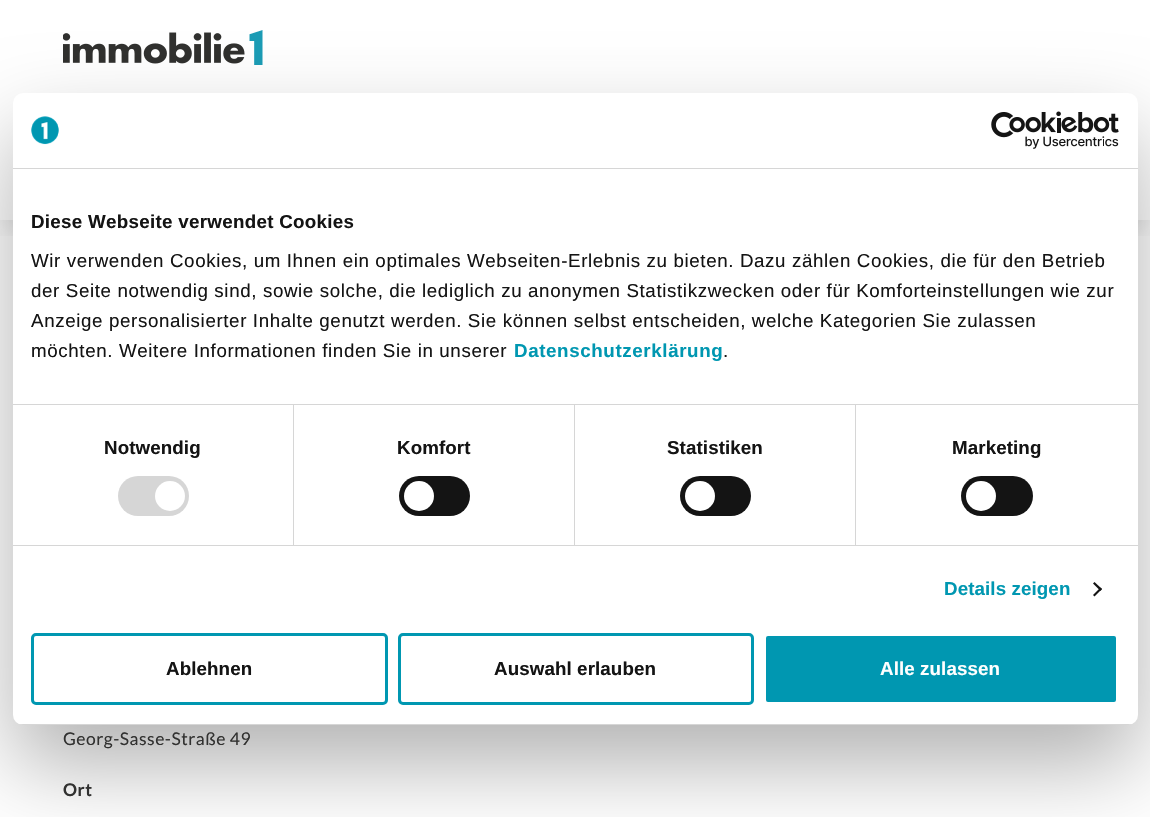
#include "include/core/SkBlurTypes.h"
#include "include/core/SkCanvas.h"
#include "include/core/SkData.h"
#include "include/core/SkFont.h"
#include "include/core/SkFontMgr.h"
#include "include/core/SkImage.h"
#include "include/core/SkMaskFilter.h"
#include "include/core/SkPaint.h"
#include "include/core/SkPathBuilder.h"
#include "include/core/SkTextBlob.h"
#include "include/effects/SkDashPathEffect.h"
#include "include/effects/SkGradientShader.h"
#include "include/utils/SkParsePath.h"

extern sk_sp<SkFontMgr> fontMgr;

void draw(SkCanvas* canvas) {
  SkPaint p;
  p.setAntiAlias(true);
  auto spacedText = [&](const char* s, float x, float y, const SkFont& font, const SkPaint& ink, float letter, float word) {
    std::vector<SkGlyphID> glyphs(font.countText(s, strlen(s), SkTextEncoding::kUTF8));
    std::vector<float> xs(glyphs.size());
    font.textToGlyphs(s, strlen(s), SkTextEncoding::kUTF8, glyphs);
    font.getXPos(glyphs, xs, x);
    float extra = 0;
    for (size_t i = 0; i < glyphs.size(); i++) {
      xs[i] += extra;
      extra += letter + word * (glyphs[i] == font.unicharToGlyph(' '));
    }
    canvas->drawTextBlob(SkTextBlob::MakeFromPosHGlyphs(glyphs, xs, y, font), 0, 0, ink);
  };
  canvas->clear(SK_ColorWHITE);
  canvas->save();
  canvas->clipRect(SkRect::MakeLTRB(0, 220, 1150, 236));
  p.setColor(SkColorSetARGB(26, 0, 0, 0));
  p.setMaskFilter(SkMaskFilter::MakeBlur(kNormal_SkBlurStyle, 9.5f));
  canvas->drawRect(SkRect::MakeLTRB(4, 16, 1146, 229), p);
  p.setMaskFilter(nullptr);
  canvas->restore();
  canvas->drawImageRect(SkImages::DeferredFromEncodedData(SkData::MakeFromFileName("images/1.png")), SkRect::MakeLTRB(63, 30, 263, 65), SkSamplingOptions());
  p.setColor(SkColorSetARGB(77, 0, 0, 0));
  p.setMaskFilter(SkMaskFilter::MakeBlur(kNormal_SkBlurStyle, 42.5f));
  canvas->drawRoundRect(SkRect::MakeLTRB(13, 133, 1138, 765), 10, 10, p);
  p.setMaskFilter(nullptr);
  p.setColor(SK_ColorWHITE);
  canvas->drawRoundRect(SkRect::MakeLTRB(13, 93, 1138, 725), 10, 10, p);
  p.setColor(SkColorSetRGB(214, 214, 214));
  canvas->drawRect(SkRect::MakeLTRB(13, 168, 1138, 169), p);
  canvas->drawImageRect(SkImages::DeferredFromEncodedData(SkData::MakeFromFileName("images/2.png")), SkRect::MakeLTRB(31, 116, 59, 145), SkSamplingOptions());
  canvas->drawImageRect(SkImages::DeferredFromEncodedData(SkData::MakeFromFileName("images/3.png")), SkRect::MakeLTRB(991, 111, 1119, 149), SkSamplingOptions());
  canvas->drawRect(SkRect::MakeLTRB(13, 404, 1138, 405), p);
  canvas->drawRect(SkRect::MakeLTRB(13, 545, 1138, 546), p);
  canvas->drawRect(SkRect::MakeLTRB(293, 405, 294, 545), p);
  canvas->drawRoundRect(SkRect::MakeLTRB(118, 476, 189, 516), 20, 20, p);
  p.setColor(SK_ColorWHITE);
  canvas->drawCircle(170, 496, 15, p);
  p.setColor(SkColorSetRGB(214, 214, 214));
  canvas->drawRect(SkRect::MakeLTRB(574, 405, 575, 545), p);
  p.setColor(SkColorSetRGB(20, 20, 20));
  canvas->drawRoundRect(SkRect::MakeLTRB(399, 476, 470, 516), 20, 20, p);
  p.setColor(SK_ColorWHITE);
  canvas->drawCircle(419, 496, 15, p);
  p.setColor(SkColorSetRGB(214, 214, 214));
  canvas->drawRect(SkRect::MakeLTRB(855, 405, 856, 545), p);
  p.setColor(SkColorSetRGB(20, 20, 20));
  canvas->drawRoundRect(SkRect::MakeLTRB(680, 476, 751, 516), 20, 20, p);
  p.setColor(SK_ColorWHITE);
  canvas->drawCircle(700, 496, 15, p);
  p.setColor(SkColorSetRGB(20, 20, 20));
  canvas->drawRoundRect(SkRect::MakeLTRB(961, 476, 1033, 516), 20, 20, p);
  p.setColor(SK_ColorWHITE);
  canvas->drawCircle(981, 496, 15, p);
  p.setColor(SkColorSetRGB(20, 20, 20));
  canvas->drawPath(SkPathBuilder().moveTo(1094.5f, 582).lineTo(1102, 589).lineTo(1100.5f, 591).lineTo(1093, 583.5f).close().detach(), p);
  canvas->drawPath(SkPathBuilder().moveTo(1100.5f, 587.5f).lineTo(1102, 589).lineTo(1094.5f, 596.5f).lineTo(1093, 595).close().detach(), p);
  canvas->save();
  canvas->clipPath(SkPathBuilder().moveTo(23, 93).lineTo(1128, 93).cubicTo(1133.5f, 93, 1138, 97.5f, 1138, 103).lineTo(1138, 715).cubicTo(1138, 720.5f, 1133.5f, 725, 1128, 725).lineTo(23, 725).cubicTo(17.5f, 725, 13, 720.5f, 13, 715).lineTo(13, 103).cubicTo(13, 97.5f, 17.5f, 93, 23, 93).close().detach(), true);
  p.setColor(SkColorSetRGB(214, 214, 214));
  canvas->drawRect(SkRect::MakeLTRB(13, 724, 1138, 725), p);
  canvas->restore();
  p.setStyle(SkPaint::kStroke_Style);
  p.setStrokeWidth(3);
  p.setColor(SkColorSetRGB(0, 151, 177));
  canvas->drawRoundRect(SkRect::MakeLTRB(32.5f, 634.5f, 386.5f, 703.5f), 3.5f, 3.5f, p);
  canvas->drawRoundRect(SkRect::MakeLTRB(399.5f, 634.5f, 752.5f, 703.5f), 3.5f, 3.5f, p);
  p.setStyle(SkPaint::kFill_Style);
  canvas->drawRoundRect(SkRect::MakeLTRB(764.5f, 634.5f, 1117.5f, 703.5f), 3.5f, 3.5f, p);
  p.setStyle(SkPaint::kStroke_Style);
  p.setColor(SK_ColorWHITE);
  canvas->drawRoundRect(SkRect::MakeLTRB(764.5f, 634.5f, 1117.5f, 703.5f), 3.5f, 3.5f, p);
  SkFont font1(fontMgr->matchFamilyStyle("Liberation Sans", SkFontStyle::Bold()), 18.75f);
  font1.setSubpixel(true);
  p.setStyle(SkPaint::kFill_Style);
  p.setColor(SkColorSetRGB(20, 20, 20));
  spacedText("Diese Webseite verwendet Cookies", 31, 228, font1, p, 0.3f, 0);
  SkFont font2(fontMgr->matchFamilyStyle("Liberation Sans", SkFontStyle::Normal()), 18.75f);
  font2.setSubpixel(true);
  spacedText("Wir verwenden Cookies, um Ihnen ein optimales Webseiten-Erlebnis zu bieten. Dazu zählen Cookies, die für den Betrieb", 31, 267, font2, p, 0.62f, 0);
  spacedText("der Seite notwendig sind, sowie solche, die lediglich zu anonymen Statistikzwecken oder für Komforteinstellungen wie zur", 31, 297, font2, p, 0.62f, 0);
  spacedText("Anzeige personalisierter Inhalte genutzt werden. Sie können selbst entscheiden, welche Kategorien Sie zulassen", 31, 327, font2, p, 0.62f, 0);
  spacedText("möchten. Weitere Informationen finden Sie in unserer", 31, 357, font2, p, 0.62f, 0);
  p.setColor(SkColorSetRGB(0, 151, 177));
  spacedText("Datenschutzerklärung", 514, 357, font1, p, 0.62f, 0);
  p.setColor(SkColorSetRGB(20, 20, 20));
  spacedText(".", 723, 357, font2, p, 0.62f, 0);
  spacedText("Notwendig", 104, 454, font1, p, 0.1f, 0);
  spacedText("Komfort", 397, 454, font1, p, 0.1f, 0);
  spacedText("Statistiken", 667, 454, font1, p, 0.1f, 0);
  spacedText("Marketing", 952, 454, font1, p, 0.1f, 0);
  p.setColor(SkColorSetRGB(0, 151, 177));
  spacedText("Details zeigen", 944, 595, font1, p, 0.1f, 0);
  p.setColor(SkColorSetRGB(20, 20, 20));
  spacedText("Ablehnen", 166, 675, font1, p, 0.1f, 0);
  spacedText("Auswahl erlauben", 494, 675, font1, p, 0.1f, 0);
  p.setColor(SK_ColorWHITE);
  spacedText("Alle zulassen", 880, 675, font1, p, 0.1f, 0);
  SkFont font3(fontMgr->matchFamilyStyle("Lato", SkFontStyle::Normal()), 17.5f);
  font3.setSubpixel(true);
  p.setColor(SkColorSetRGB(49, 49, 48));
  spacedText("Georg-Sasse-Straße 49", 63, 745, font3, p, 0.5f, 0);
  SkFont font4(fontMgr->matchFamilyStyle("Lato", SkFontStyle::Bold()), 17.5f);
  font4.setSubpixel(true);
  spacedText("Ort", 63, 796, font4, p, 0.5f, 0);
}
